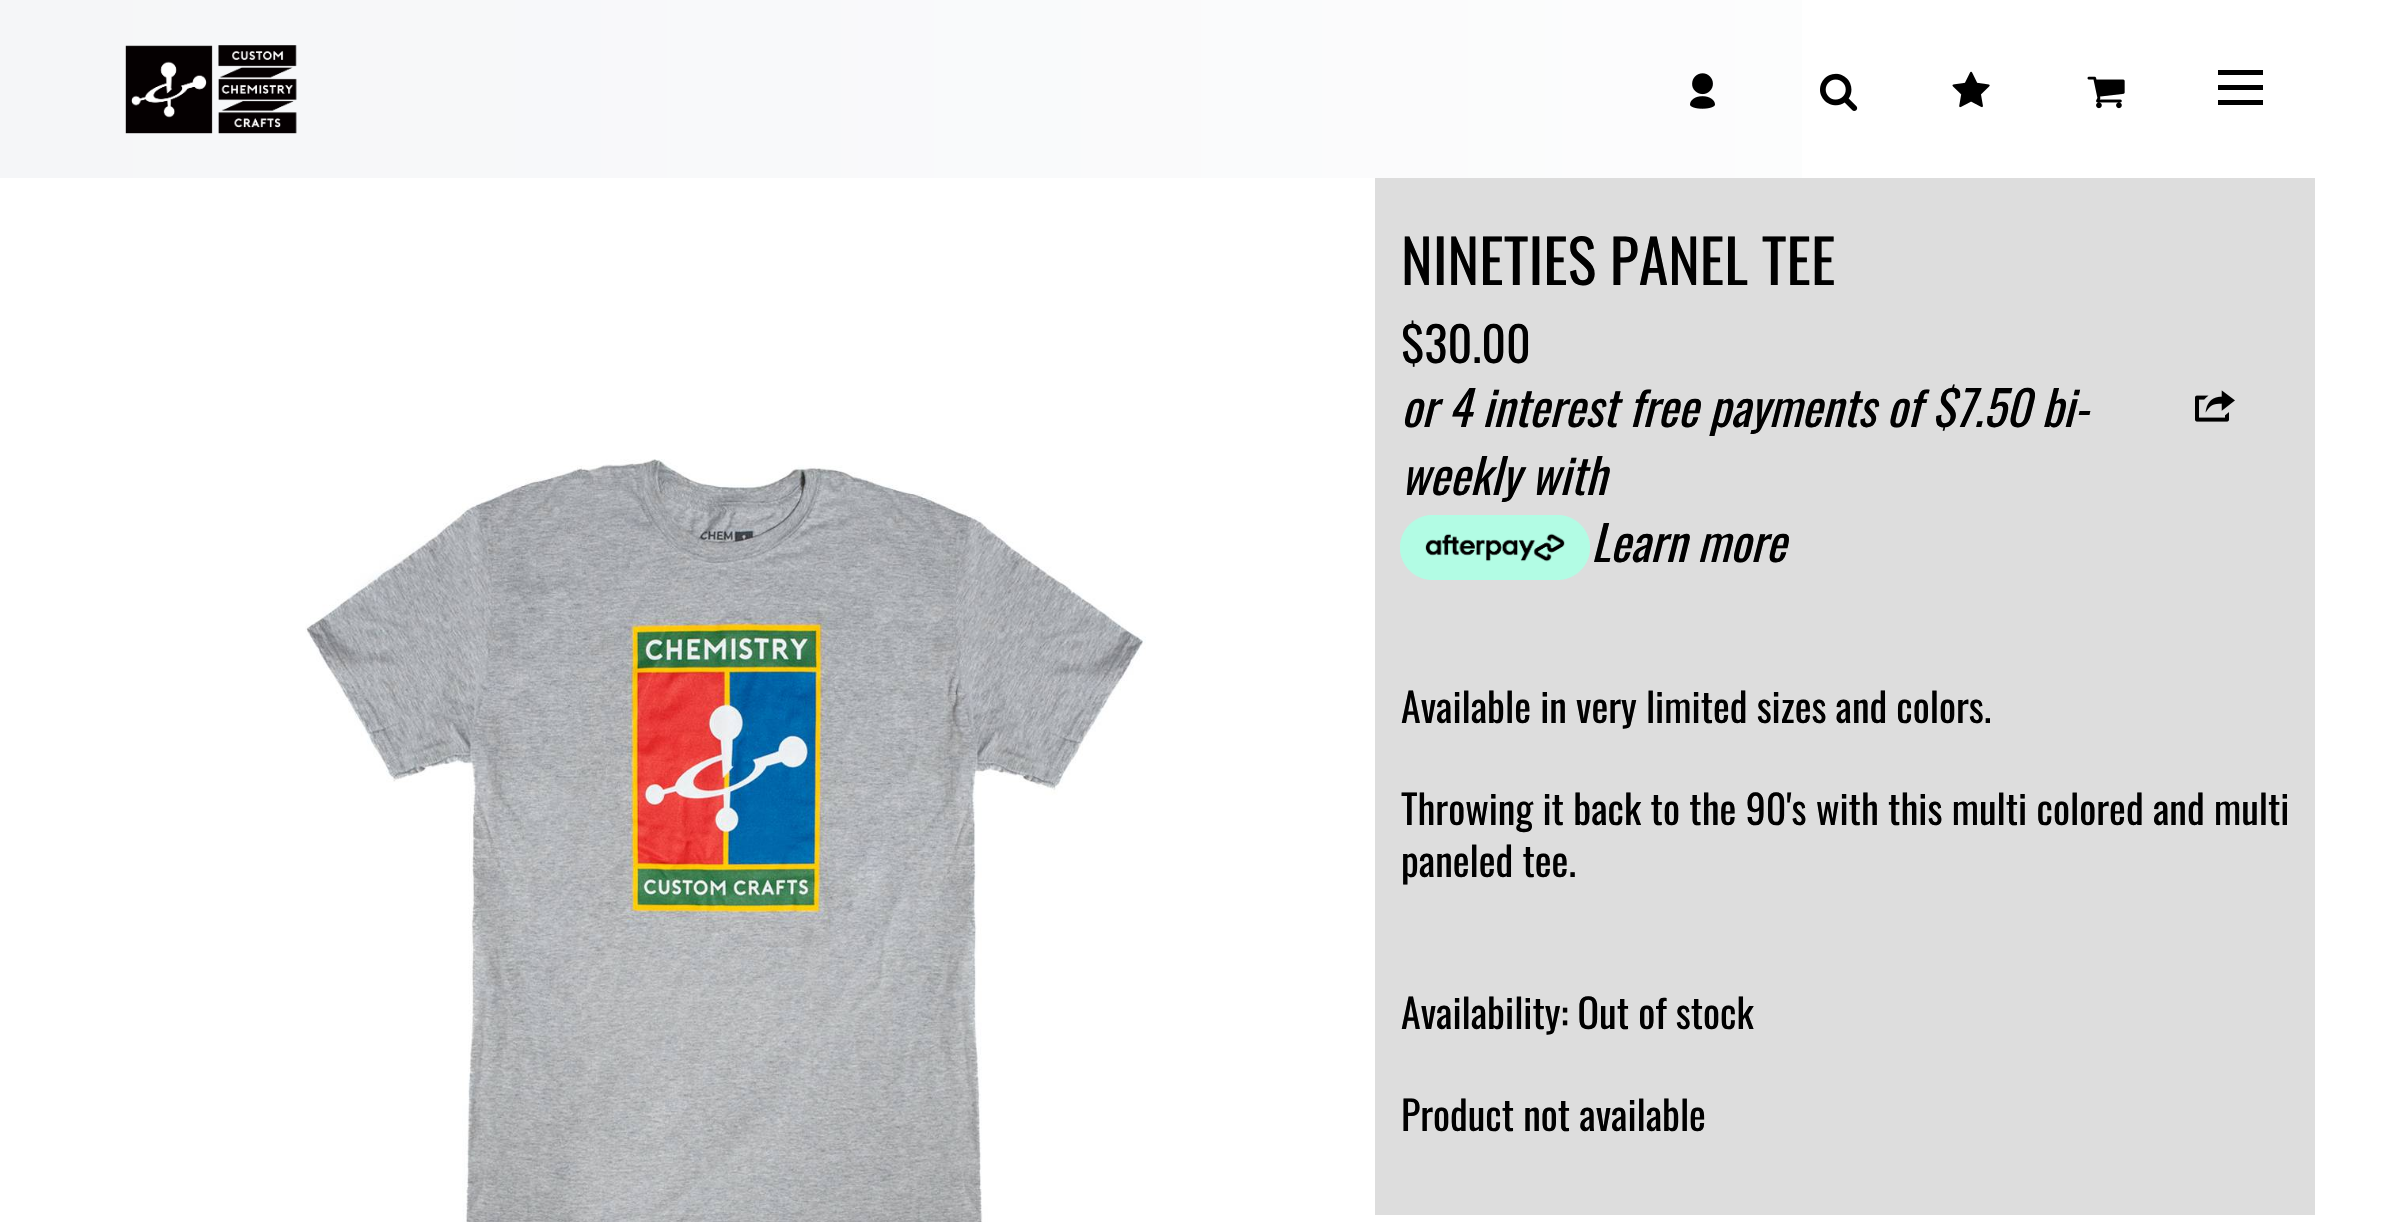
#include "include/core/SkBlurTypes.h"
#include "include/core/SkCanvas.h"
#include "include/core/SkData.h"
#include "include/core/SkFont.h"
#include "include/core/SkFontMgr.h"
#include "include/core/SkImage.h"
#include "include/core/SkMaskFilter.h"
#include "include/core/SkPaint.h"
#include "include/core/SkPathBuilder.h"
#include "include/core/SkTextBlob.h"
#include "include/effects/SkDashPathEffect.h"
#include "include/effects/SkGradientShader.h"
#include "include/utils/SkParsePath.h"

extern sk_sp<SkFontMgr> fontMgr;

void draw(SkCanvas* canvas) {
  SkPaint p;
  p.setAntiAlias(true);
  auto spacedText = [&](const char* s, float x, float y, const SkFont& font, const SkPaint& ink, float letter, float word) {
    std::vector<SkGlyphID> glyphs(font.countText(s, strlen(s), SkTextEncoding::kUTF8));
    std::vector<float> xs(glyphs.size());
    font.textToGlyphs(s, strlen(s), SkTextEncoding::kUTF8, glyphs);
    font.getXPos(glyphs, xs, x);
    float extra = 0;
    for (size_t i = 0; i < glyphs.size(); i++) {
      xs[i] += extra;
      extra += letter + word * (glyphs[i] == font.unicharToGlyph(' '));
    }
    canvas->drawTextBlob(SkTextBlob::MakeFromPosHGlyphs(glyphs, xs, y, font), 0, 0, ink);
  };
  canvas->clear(SK_ColorWHITE);
  {
    const SkColor colors[] = {SkColorSetRGB(245, 246, 248), SK_ColorWHITE};
    const float stops[] = {0, 1};
    const SkPoint ends[] = {{0, 89}, {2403, 89}};
    p.setShader(SkGradientShader::MakeLinear(ends, colors, stops, 2, SkTileMode::kClamp));
    p.setAlpha(255);
  }
  canvas->drawRect(SkRect::MakeLTRB(0, 0, 1802, 178), p);
  canvas->drawImageRect(SkImages::DeferredFromEncodedData(SkData::MakeFromFileName("images/1.png")), SkRect::MakeLTRB(125, 45, 297, 134), SkSamplingOptions());
  canvas->drawImageRect(SkImages::DeferredFromEncodedData(SkData::MakeFromFileName("images/2.png")), SkRect::MakeLTRB(1690, 73, 1715, 109), SkSamplingOptions());
  canvas->drawImageRect(SkImages::DeferredFromEncodedData(SkData::MakeFromFileName("images/3.png")), SkRect::MakeLTRB(1820, 73, 1858, 111), SkSamplingOptions());
  canvas->drawImageRect(SkImages::DeferredFromEncodedData(SkData::MakeFromFileName("images/4.png")), SkRect::MakeLTRB(1952, 71, 1990, 108), SkSamplingOptions());
  canvas->drawImageRect(SkImages::DeferredFromEncodedData(SkData::MakeFromFileName("images/5.png")), SkRect::MakeLTRB(2087, 76, 2125, 109), SkSamplingOptions());
  p.setShader(nullptr);
  p.setColor(SK_ColorBLACK);
  canvas->drawRect(SkRect::MakeLTRB(2218, 70, 2263, 75), p);
  canvas->drawRect(SkRect::MakeLTRB(2218, 85, 2263, 90), p);
  canvas->drawRect(SkRect::MakeLTRB(2218, 100, 2263, 105), p);
  canvas->drawImageRect(SkImages::DeferredFromEncodedData(SkData::MakeFromFileName("images/6.png")), SkRect::MakeLTRB(305, 459, 1146, 1222), SkSamplingOptions());
  p.setColor(SkColorSetRGB(221, 221, 221));
  canvas->drawRect(SkRect::MakeLTRB(1375, 178, 2315, 1215), p);
  canvas->drawImageRect(SkImages::DeferredFromEncodedData(SkData::MakeFromFileName("images/7.png")), SkRect::MakeLTRB(1400, 515, 1590, 580), SkSamplingOptions());
  canvas->drawImageRect(SkImages::DeferredFromEncodedData(SkData::MakeFromFileName("images/8.png")), SkRect::MakeLTRB(2195, 390, 2235, 422), SkSamplingOptions());
  SkFont font1(fontMgr->matchFamilyStyle("Oswald", SkFontStyle::Normal()), 60);
  font1.setSubpixel(true);
  p.setColor(SK_ColorBLACK);
  canvas->drawString("NINETIES PANEL TEE", 1401, 285, font1, p);
  SkFont font2(fontMgr->matchFamilyStyle("Oswald", SkFontStyle::Normal()), 48);
  font2.setSubpixel(true);
  canvas->drawString("$30.00", 1401, 363, font2, p);
  SkFont font3(fontMgr->matchFamilyStyle("Oswald", SkFontStyle::Italic()), 48);
  font3.setSubpixel(true);
  canvas->drawString("or 4 interest free payments of $7.50 bi-", 1401, 427, font3, p);
  canvas->drawString("weekly with", 1401, 495, font3, p);
  canvas->drawString("Learn more", 1591, 562, font3, p);
  SkFont font4(fontMgr->matchFamilyStyle("Oswald", SkFontStyle::Normal()), 40);
  font4.setSubpixel(true);
  canvas->drawString("Available in very limited sizes and colors.", 1401, 723, font4, p);
  spacedText("Throwing it back to the 90's with this multi colored and multi", 1401, 825, font4, p, 0, 0.25f);
  canvas->drawString("paneled tee.", 1401, 877, font4, p);
  canvas->drawString("Availability: Out of stock", 1401, 1029, font4, p);
  canvas->drawString("Product not available", 1401, 1131, font4, p);
}
